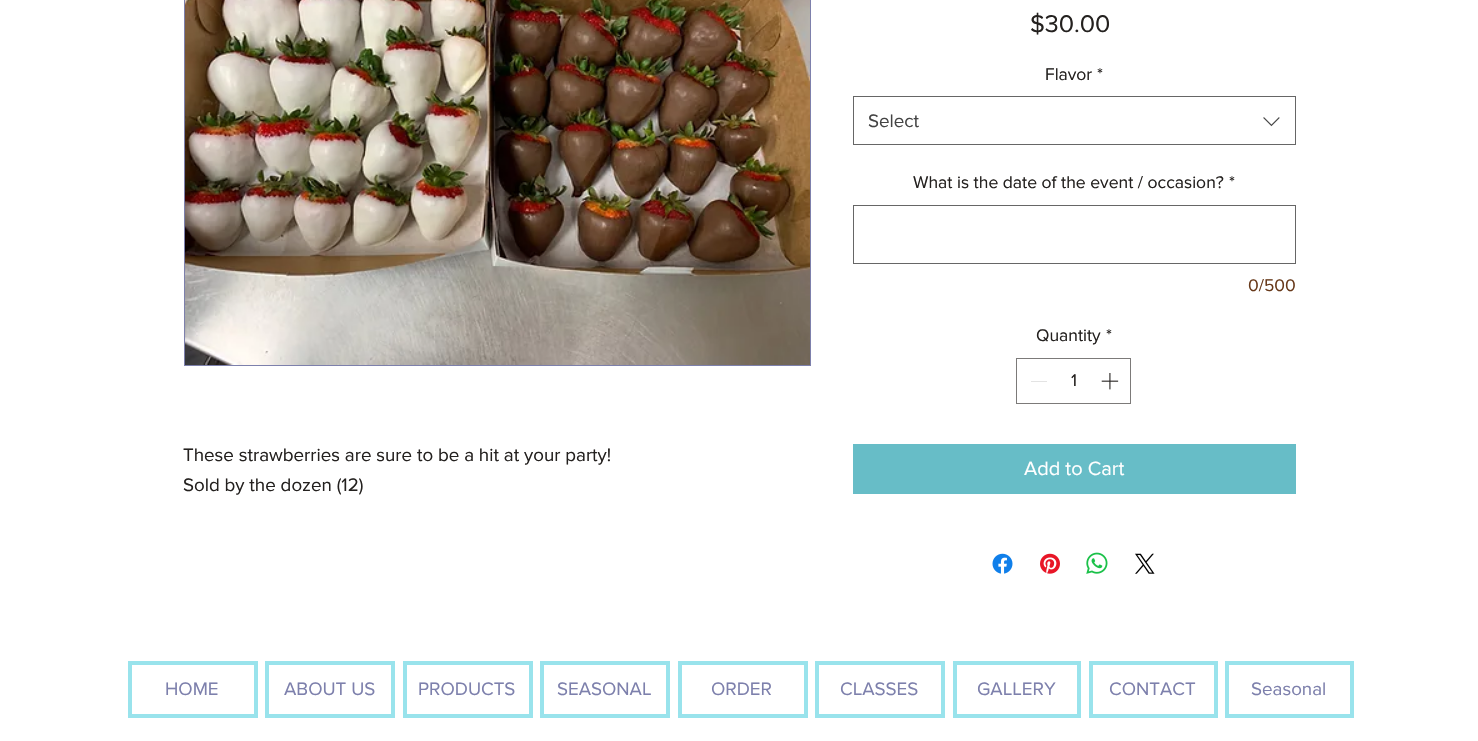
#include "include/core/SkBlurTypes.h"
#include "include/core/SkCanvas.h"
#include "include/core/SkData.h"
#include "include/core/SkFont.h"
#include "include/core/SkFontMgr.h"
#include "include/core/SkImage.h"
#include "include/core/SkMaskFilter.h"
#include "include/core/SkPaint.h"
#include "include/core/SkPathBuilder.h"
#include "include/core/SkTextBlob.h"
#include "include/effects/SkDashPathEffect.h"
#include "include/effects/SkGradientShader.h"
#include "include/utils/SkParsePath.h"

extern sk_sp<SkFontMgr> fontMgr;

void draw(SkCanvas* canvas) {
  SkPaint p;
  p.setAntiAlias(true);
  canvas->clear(SK_ColorWHITE);
  p.setStyle(SkPaint::kStroke_Style);
  p.setStrokeWidth(1);
  p.setColor(SkColorSetRGB(125, 128, 172));
  canvas->drawRect(SkRect::MakeLTRB(184.5f, -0.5f, 810.5f, 365.5f), p);
  canvas->drawImageRect(SkImages::DeferredFromEncodedData(SkData::MakeFromFileName("images/1.png")), SkRect::MakeLTRB(185, 0, 810, 365), SkSamplingOptions());
  p.setColor(SkColorSetRGB(102, 102, 102));
  canvas->drawRect(SkRect::MakeLTRB(853.5f, 96.5f, 1295.5f, 144.5f), p);
  canvas->drawImageRect(SkImages::DeferredFromEncodedData(SkData::MakeFromFileName("images/2.png")), SkRect::MakeLTRB(1263, 117, 1280, 127), SkSamplingOptions());
  canvas->drawRect(SkRect::MakeLTRB(853.5f, 205.5f, 1295.5f, 263.5f), p);
  p.setColor(SkColorSetRGB(124, 122, 121));
  canvas->drawRect(SkRect::MakeLTRB(1016.5f, 358.5f, 1130.5f, 403.5f), p);
  p.setStyle(SkPaint::kFill_Style);
  p.setColor(SkColorSetRGB(227, 227, 227));
  canvas->drawRect(SkRect::MakeLTRB(1031, 381, 1047, 382), p);
  canvas->drawImageRect(SkImages::DeferredFromEncodedData(SkData::MakeFromFileName("images/3.png")), SkRect::MakeLTRB(1101, 373, 1119, 390), SkSamplingOptions());
  p.setColor(SkColorSetRGB(103, 189, 199));
  canvas->drawRect(SkRect::MakeLTRB(853, 444, 1296, 494), p);
  canvas->drawImageRect(SkImages::DeferredFromEncodedData(SkData::MakeFromFileName("images/4.png")), SkRect::MakeLTRB(992, 553, 1013, 574), SkSamplingOptions());
  canvas->drawImageRect(SkImages::DeferredFromEncodedData(SkData::MakeFromFileName("images/5.png")), SkRect::MakeLTRB(1040, 553, 1060, 574), SkSamplingOptions());
  canvas->drawImageRect(SkImages::DeferredFromEncodedData(SkData::MakeFromFileName("images/6.png")), SkRect::MakeLTRB(1086, 552, 1108, 574), SkSamplingOptions());
  canvas->drawImageRect(SkImages::DeferredFromEncodedData(SkData::MakeFromFileName("images/7.png")), SkRect::MakeLTRB(1135, 553, 1155, 574), SkSamplingOptions());
  p.setStyle(SkPaint::kStroke_Style);
  p.setStrokeWidth(4);
  p.setColor(SkColorSetRGB(153, 227, 236));
  canvas->drawRect(SkRect::MakeLTRB(130, 663, 256, 716), p);
  canvas->drawRect(SkRect::MakeLTRB(267, 663, 393, 716), p);
  canvas->drawRect(SkRect::MakeLTRB(405, 663, 531, 716), p);
  canvas->drawRect(SkRect::MakeLTRB(542, 663, 668, 716), p);
  canvas->drawRect(SkRect::MakeLTRB(680, 663, 806, 716), p);
  canvas->drawRect(SkRect::MakeLTRB(817, 663, 943, 716), p);
  canvas->drawRect(SkRect::MakeLTRB(955, 663, 1079, 716), p);
  canvas->drawRect(SkRect::MakeLTRB(1091, 663, 1216, 716), p);
  canvas->drawRect(SkRect::MakeLTRB(1227, 663, 1352, 716), p);
  SkFont font1(fontMgr->matchFamilyStyle("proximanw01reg", SkFontStyle::Normal()), 18.75f);
  font1.setSubpixel(true);
  p.setStyle(SkPaint::kFill_Style);
  p.setColor(SkColorSetRGB(36, 33, 31));
  canvas->drawString("These strawberries are sure to be a hit at your party!", 183, 461, font1, p);
  canvas->drawString("Sold by the dozen (12)", 183, 491, font1, p);
  SkFont font2(fontMgr->matchFamilyStyle("proximanw01reg", SkFontStyle::Normal()), 25);
  font2.setSubpixel(true);
  canvas->drawString("$30.00", 1030, 32, font2, p);
  SkFont font3(fontMgr->matchFamilyStyle("proximanw01reg", SkFontStyle::Normal()), 17.5f);
  font3.setSubpixel(true);
  canvas->drawString("Flavor", 1045, 80, font3, p);
  canvas->drawString("*", 1097, 80, font3, p);
  p.setColor(SkColorSetRGB(68, 68, 68));
  canvas->drawString("Select", 868, 127, font1, p);
  p.setColor(SkColorSetRGB(36, 33, 31));
  canvas->drawString("What is the date of the event / occasion?", 913, 188, font3, p);
  canvas->drawString("*", 1229, 188, font3, p);
  p.setColor(SkColorSetRGB(104, 57, 26));
  canvas->drawString("0/500", 1248, 291, font3, p);
  p.setColor(SkColorSetRGB(36, 33, 31));
  canvas->drawString("Quantity", 1036, 341, font3, p);
  canvas->drawString("*", 1106, 341, font3, p);
  canvas->drawString("1", 1071, 386, font3, p);
  SkFont font4(fontMgr->matchFamilyStyle("proximanw01reg", SkFontStyle::Normal()), 20);
  font4.setSubpixel(true);
  p.setColor(SK_ColorWHITE);
  canvas->drawString("Add to Cart", 1024, 475, font4, p);
  p.setColor(SkColorSetRGB(125, 128, 172));
  canvas->drawString("HOME", 165, 695, font1, p);
  canvas->drawString("ABOUT US", 284, 695, font1, p);
  canvas->drawString("PRODUCTS", 418, 695, font1, p);
  canvas->drawString("SEASONAL", 557, 695, font1, p);
  canvas->drawString("ORDER", 711, 695, font1, p);
  canvas->drawString("CLASSES", 840, 695, font1, p);
  canvas->drawString("GALLERY", 977, 695, font1, p);
  canvas->drawString("CONTACT", 1109, 695, font1, p);
  canvas->drawString("Seasonal", 1251, 695, font1, p);
}
